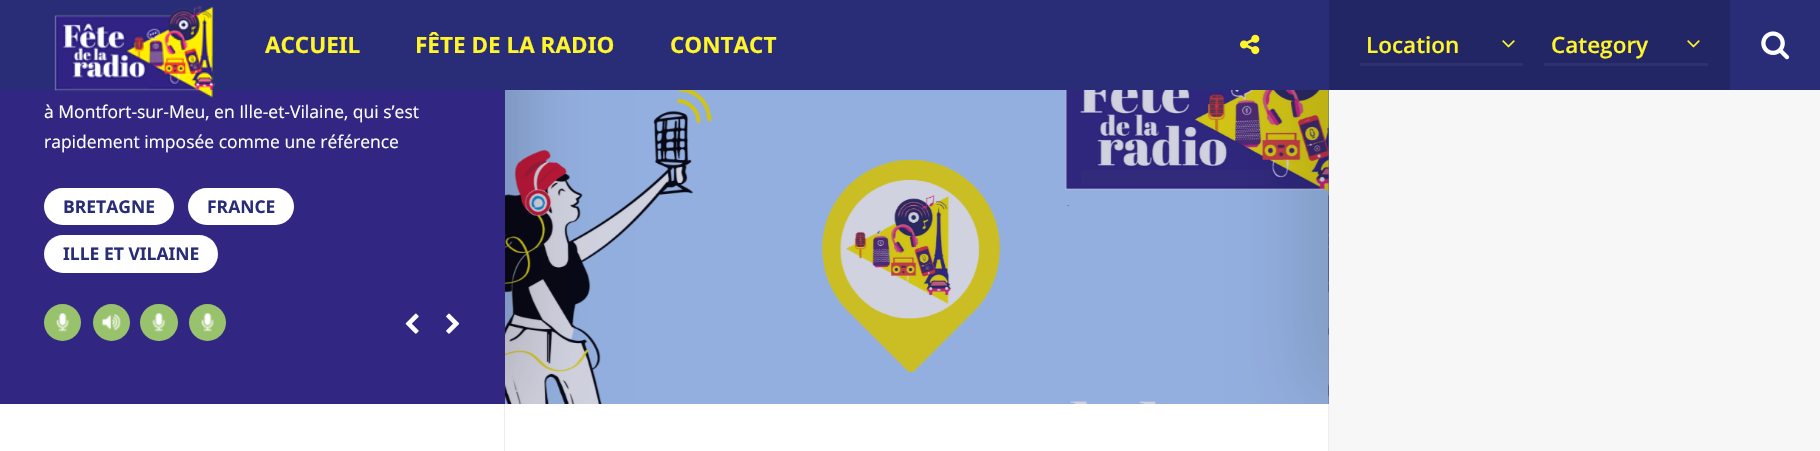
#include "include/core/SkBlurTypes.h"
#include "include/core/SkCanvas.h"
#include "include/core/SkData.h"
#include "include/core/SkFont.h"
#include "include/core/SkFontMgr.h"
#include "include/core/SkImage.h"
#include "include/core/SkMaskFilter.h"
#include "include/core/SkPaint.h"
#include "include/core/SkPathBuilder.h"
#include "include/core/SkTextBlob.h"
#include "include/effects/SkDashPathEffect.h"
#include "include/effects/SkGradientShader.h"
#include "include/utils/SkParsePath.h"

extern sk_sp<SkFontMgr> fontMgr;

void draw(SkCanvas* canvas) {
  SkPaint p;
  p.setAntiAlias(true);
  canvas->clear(SkColorSetRGB(247, 247, 247));
  p.setColor(SkColorSetRGB(35, 38, 101));
  canvas->drawRect(SkRect::MakeLTRB(505, 90, 1329, 404), p);
  canvas->drawImageRect(SkImages::DeferredFromEncodedData(SkData::MakeFromFileName("images/8.png")), SkRect::MakeLTRB(505, 90, 1329, 404), SkSamplingOptions());
  p.setColor(SK_ColorWHITE);
  canvas->drawRect(SkRect::MakeLTRB(505, 404, 1328, 451), p);
  canvas->drawRect(SkRect::MakeLTRB(0, 404, 504, 451), p);
  p.setColor(SkColorSetRGB(237, 237, 237));
  canvas->drawRect(SkRect::MakeLTRB(504, 404, 505, 451), p);
  canvas->save();
  canvas->clipRect(SkRect::MakeLTRB(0, 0, 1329, 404));
  p.setColor(SkColorSetARGB(64, 0, 0, 0));
  p.setMaskFilter(SkMaskFilter::MakeBlur(kNormal_SkBlurStyle, 44));
  canvas->drawRect(SkRect::MakeLTRB(0, -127, 505, 404), p);
  p.setMaskFilter(nullptr);
  canvas->restore();
  canvas->drawImageRect(SkImages::DeferredFromEncodedData(SkData::MakeFromFileName("images/9.png")), SkRect::MakeLTRB(1328, 90, 1329, 404), SkSamplingOptions());
  p.setColor(SkColorSetRGB(35, 38, 101));
  canvas->drawRect(SkRect::MakeLTRB(1329, 0, 1730, 90), p);
  p.setColor(SkColorSetRGB(46, 49, 109));
  canvas->drawRect(SkRect::MakeLTRB(1360, 63, 1523, 66), p);
  p.setColor(SkColorSetRGB(237, 237, 237));
  canvas->drawRect(SkRect::MakeLTRB(1328, 404, 1329, 451), p);
  canvas->save();
  canvas->clipRect(SkRect::MakeLTRB(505, 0, 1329, 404));
  p.setColor(SkColorSetARGB(102, 0, 0, 0));
  p.setMaskFilter(SkMaskFilter::MakeBlur(kNormal_SkBlurStyle, 44));
  canvas->drawRect(SkRect::MakeLTRB(1329, -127, 1354, 404), p);
  p.setMaskFilter(nullptr);
  canvas->restore();
  p.setColor(SkColorSetRGB(41, 45, 120));
  canvas->drawRect(SkRect::MakeLTRB(0, 0, 1329, 90), p);
  p.setColor(SkColorSetRGB(49, 39, 130));
  canvas->drawRect(SkRect::MakeLTRB(0, 90, 505, 404), p);
  canvas->drawImageRect(SkImages::DeferredFromEncodedData(SkData::MakeFromFileName("images/1.png")), SkRect::MakeLTRB(54, 6, 216, 98), SkSamplingOptions());
  canvas->drawImageRect(SkImages::DeferredFromEncodedData(SkData::MakeFromFileName("images/2.png")), SkRect::MakeLTRB(1240, 34, 1260, 55), SkSamplingOptions());
  p.setColor(SK_ColorWHITE);
  canvas->drawRoundRect(SkRect::MakeLTRB(44, 188, 174, 225), 18.5f, 18.5f, p);
  canvas->drawRoundRect(SkRect::MakeLTRB(188, 188, 294, 225), 18.5f, 18.5f, p);
  canvas->drawRoundRect(SkRect::MakeLTRB(44, 235, 218, 273), 19, 19, p);
  p.setColor(SkColorSetRGB(152, 194, 108));
  canvas->drawCircle(62.5f, 322.5f, 18.5f, p);
  canvas->drawImageRect(SkImages::DeferredFromEncodedData(SkData::MakeFromFileName("images/3.png")), SkRect::MakeLTRB(56, 313, 69, 332), SkSamplingOptions());
  canvas->drawCircle(111.5f, 322.5f, 18.5f, p);
  canvas->drawImageRect(SkImages::DeferredFromEncodedData(SkData::MakeFromFileName("images/4.png")), SkRect::MakeLTRB(101, 314, 121, 331), SkSamplingOptions());
  canvas->drawRoundRect(SkRect::MakeLTRB(140, 304, 178, 341), 18.5f, 18.5f, p);
  canvas->drawImageRect(SkImages::DeferredFromEncodedData(SkData::MakeFromFileName("images/5.png")), SkRect::MakeLTRB(152, 313, 165, 332), SkSamplingOptions());
  canvas->drawCircle(207.5f, 322.5f, 18.5f, p);
  canvas->drawImageRect(SkImages::DeferredFromEncodedData(SkData::MakeFromFileName("images/3.png")), SkRect::MakeLTRB(201, 313, 214, 332), SkSamplingOptions());
  canvas->drawImageRect(SkImages::DeferredFromEncodedData(SkData::MakeFromFileName("images/6.png")), SkRect::MakeLTRB(405, 313, 419, 334), SkSamplingOptions());
  canvas->drawImageRect(SkImages::DeferredFromEncodedData(SkData::MakeFromFileName("images/7.png")), SkRect::MakeLTRB(446, 313, 460, 334), SkSamplingOptions());
  canvas->drawImageRect(SkImages::DeferredFromEncodedData(SkData::MakeFromFileName("images/10.png")), SkRect::MakeLTRB(1502, 40, 1515, 48), SkSamplingOptions());
  p.setColor(SkColorSetRGB(46, 49, 109));
  canvas->drawRect(SkRect::MakeLTRB(1544, 63, 1708, 66), p);
  canvas->drawImageRect(SkImages::DeferredFromEncodedData(SkData::MakeFromFileName("images/10.png")), SkRect::MakeLTRB(1687, 40, 1700, 48), SkSamplingOptions());
  p.setColor(SkColorSetRGB(41, 45, 120));
  canvas->drawRect(SkRect::MakeLTRB(1730, 0, 1820, 90), p);
  canvas->drawImageRect(SkImages::DeferredFromEncodedData(SkData::MakeFromFileName("images/11.png")), SkRect::MakeLTRB(1761, 31, 1790, 60), SkSamplingOptions());
  SkFont font1(fontMgr->matchFamilyStyle("Noto Sans", SkFontStyle::Bold()), 22.5f);
  font1.setSubpixel(true);
  p.setColor(SkColorSetRGB(255, 245, 42));
  canvas->drawString("ACCUEIL", 265, 53, font1, p);
  canvas->drawString("FÊTE DE LA RADIO", 415, 53, font1, p);
  canvas->drawString("CONTACT", 670, 53, font1, p);
  SkFont font2(fontMgr->matchFamilyStyle("Open Sans", SkFontStyle::Normal()), 17.5f);
  font2.setSubpixel(true);
  p.setColor(SK_ColorWHITE);
  canvas->drawString("à Montfort-sur-Meu, en Ille-et-Vilaine, qui s’est", 44, 118, font2, p);
  canvas->drawString("rapidement imposée comme une référence", 44, 148, font2, p);
  SkFont font3(fontMgr->matchFamilyStyle("Noto Sans", SkFontStyle::Bold()), 17.5f);
  font3.setSubpixel(true);
  p.setColor(SkColorSetRGB(41, 45, 120));
  canvas->drawString("BRETAGNE", 63, 213, font3, p);
  canvas->drawString("FRANCE", 207, 213, font3, p);
  canvas->drawString("ILLE ET VILAINE", 63, 260, font3, p);
  SkFont font4(fontMgr->matchFamilyStyle("Open Sans", SkFontStyle(600, SkFontStyle::kNormal_Width, SkFontStyle::kUpright_Slant)), 22.5f);
  font4.setSubpixel(true);
  p.setColor(SkColorSetRGB(255, 245, 42));
  canvas->drawString("Location", 1366, 53, font4, p);
  canvas->drawString("Category", 1551, 53, font4, p);
}
